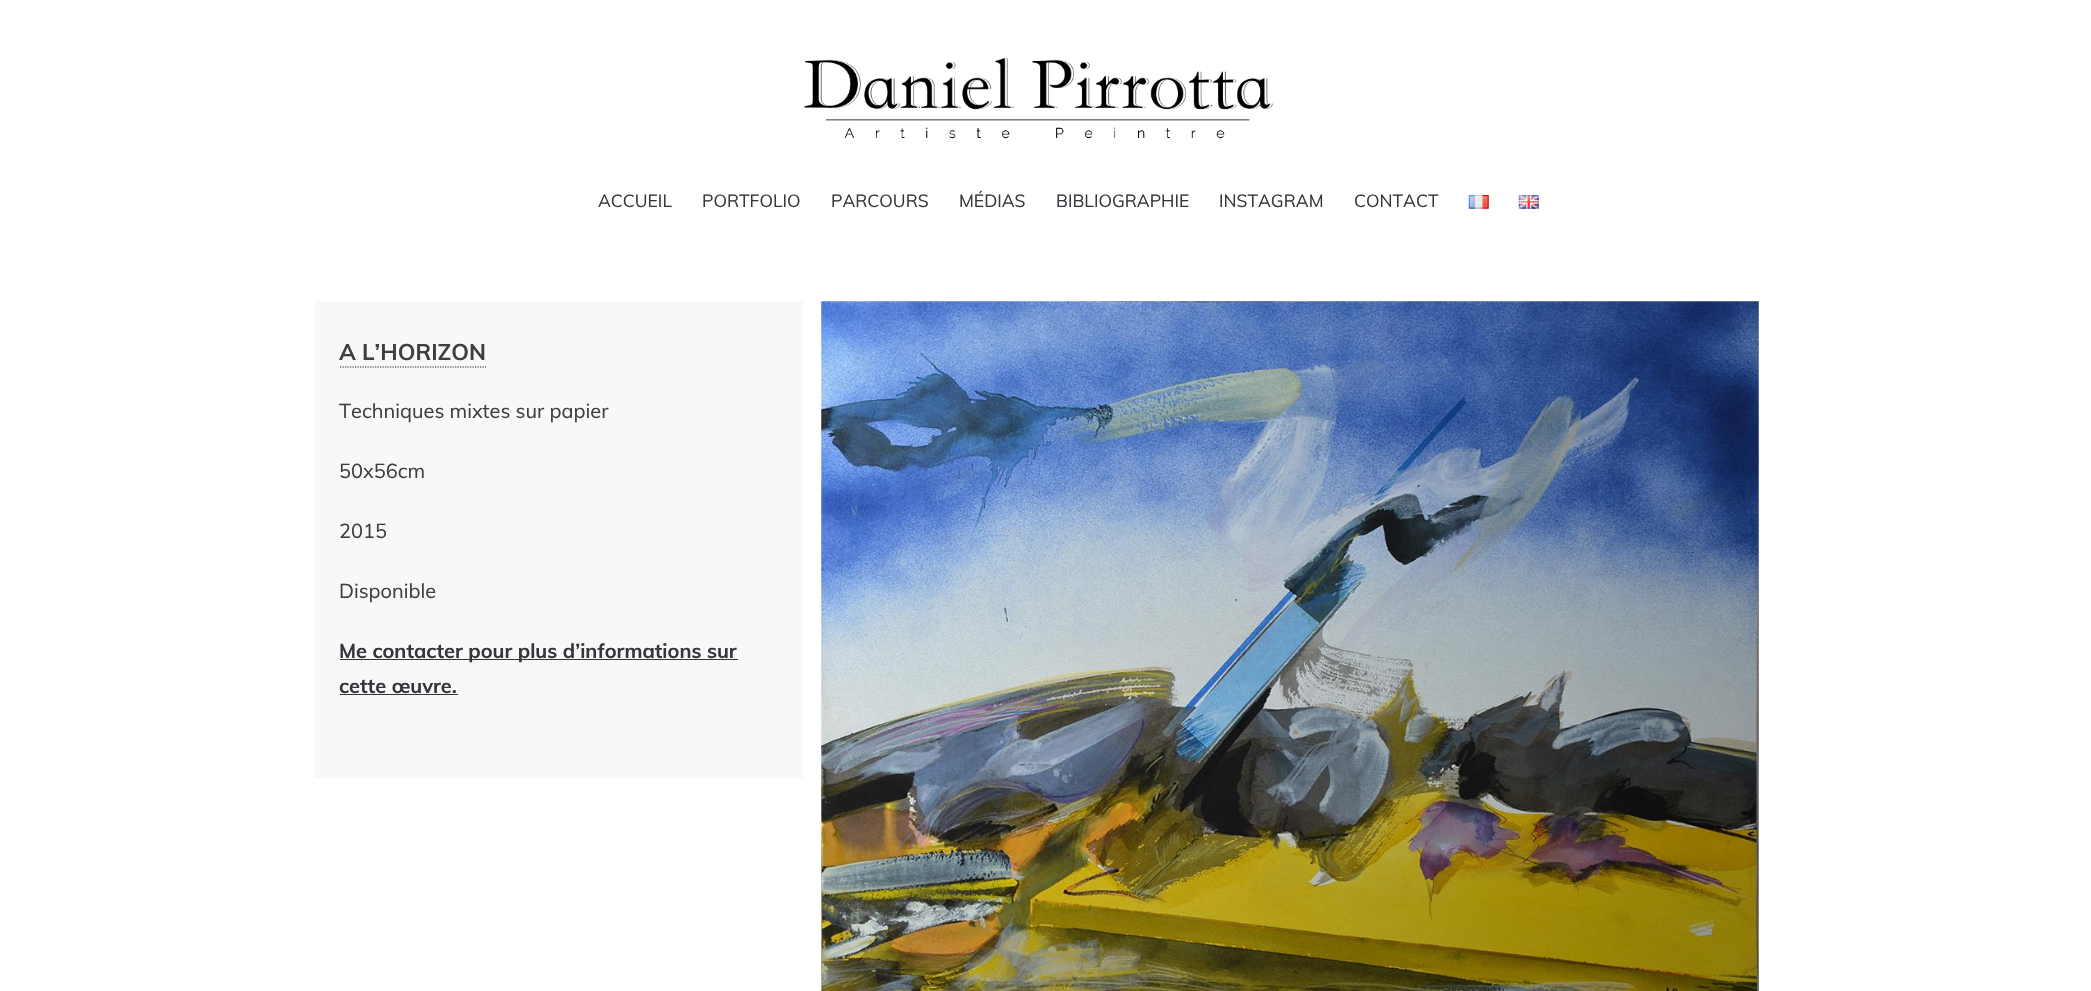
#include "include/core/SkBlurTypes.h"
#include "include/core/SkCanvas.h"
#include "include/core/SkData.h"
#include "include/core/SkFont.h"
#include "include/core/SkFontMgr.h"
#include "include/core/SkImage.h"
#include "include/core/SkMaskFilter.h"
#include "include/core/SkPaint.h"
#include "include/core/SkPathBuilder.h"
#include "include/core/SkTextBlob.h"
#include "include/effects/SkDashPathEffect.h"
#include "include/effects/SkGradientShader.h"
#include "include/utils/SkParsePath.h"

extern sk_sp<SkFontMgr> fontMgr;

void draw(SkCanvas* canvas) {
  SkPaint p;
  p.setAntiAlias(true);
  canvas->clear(SK_ColorWHITE);
  canvas->drawImageRect(SkImages::DeferredFromEncodedData(SkData::MakeFromFileName("images/1.png")), SkRect::MakeLTRB(804, 58, 1273, 139), SkSamplingOptions());
  canvas->drawImageRect(SkImages::DeferredFromEncodedData(SkData::MakeFromFileName("images/2.png")), SkRect::MakeLTRB(1468, 195, 1489, 209), SkSamplingOptions());
  canvas->drawImageRect(SkImages::DeferredFromEncodedData(SkData::MakeFromFileName("images/3.png")), SkRect::MakeLTRB(1518, 195, 1539, 209), SkSamplingOptions());
  p.setColor(SkColorSetRGB(248, 248, 248));
  canvas->drawRect(SkRect::MakeLTRB(315, 301, 803, 778), p);
  p.setStyle(SkPaint::kStroke_Style);
  p.setStrokeWidth(1.2f);
  p.setColor(SkColorSetRGB(38, 38, 38));
  p.setPathEffect(SkDashPathEffect::Make({{1.25f, 1.25f}}, 0));
  canvas->drawPath(SkPathBuilder().moveTo(340, 367).lineTo(486, 367).detach(), p);
  p.setPathEffect(nullptr);
  p.setStyle(SkPaint::kFill_Style);
  p.setColor(SkColorSetRGB(51, 54, 59));
  canvas->drawRect(SkRect::MakeLTRB(340, 659, 738, 660), p);
  canvas->drawRect(SkRect::MakeLTRB(340, 694, 458, 695), p);
  canvas->drawImageRect(SkImages::DeferredFromEncodedData(SkData::MakeFromFileName("images/4.png")), SkRect::MakeLTRB(821, 301, 1759, 991), SkSamplingOptions());
  SkFont font1(fontMgr->matchFamilyStyle("Muli", SkFontStyle::Normal()), 17.5f);
  font1.setSubpixel(true);
  canvas->drawString("ACCUEIL", 598, 207, font1, p);
  canvas->drawString("PORTFOLIO", 702, 207, font1, p);
  canvas->drawString("PARCOURS", 831, 207, font1, p);
  canvas->drawString("MÉDIAS", 959, 207, font1, p);
  canvas->drawString("BIBLIOGRAPHIE", 1056, 207, font1, p);
  canvas->drawString("INSTAGRAM", 1219, 207, font1, p);
  canvas->drawString("CONTACT", 1354, 207, font1, p);
  SkFont font2(fontMgr->matchFamilyStyle("Muli", SkFontStyle::Bold()), 22.5f);
  font2.setSubpixel(true);
  p.setColor(SkColorSetRGB(63, 63, 63));
  canvas->drawString("A L’HORIZON", 339, 360, font2, p);
  SkFont font3(fontMgr->matchFamilyStyle("Muli", SkFontStyle::Normal()), 20);
  font3.setSubpixel(true);
  canvas->drawString("Techniques mixtes sur papier", 339, 418, font3, p);
  canvas->drawString("50x56cm", 339, 478, font3, p);
  canvas->drawString("2015", 339, 538, font3, p);
  canvas->drawString("Disponible", 339, 598, font3, p);
  SkFont font4(fontMgr->matchFamilyStyle("Muli", SkFontStyle::Bold()), 20);
  font4.setSubpixel(true);
  p.setColor(SkColorSetRGB(51, 54, 59));
  canvas->drawString("Me contacter pour plus d’informations sur", 339, 658, font4, p);
  canvas->drawString("cette œuvre.", 339, 693, font4, p);
}
